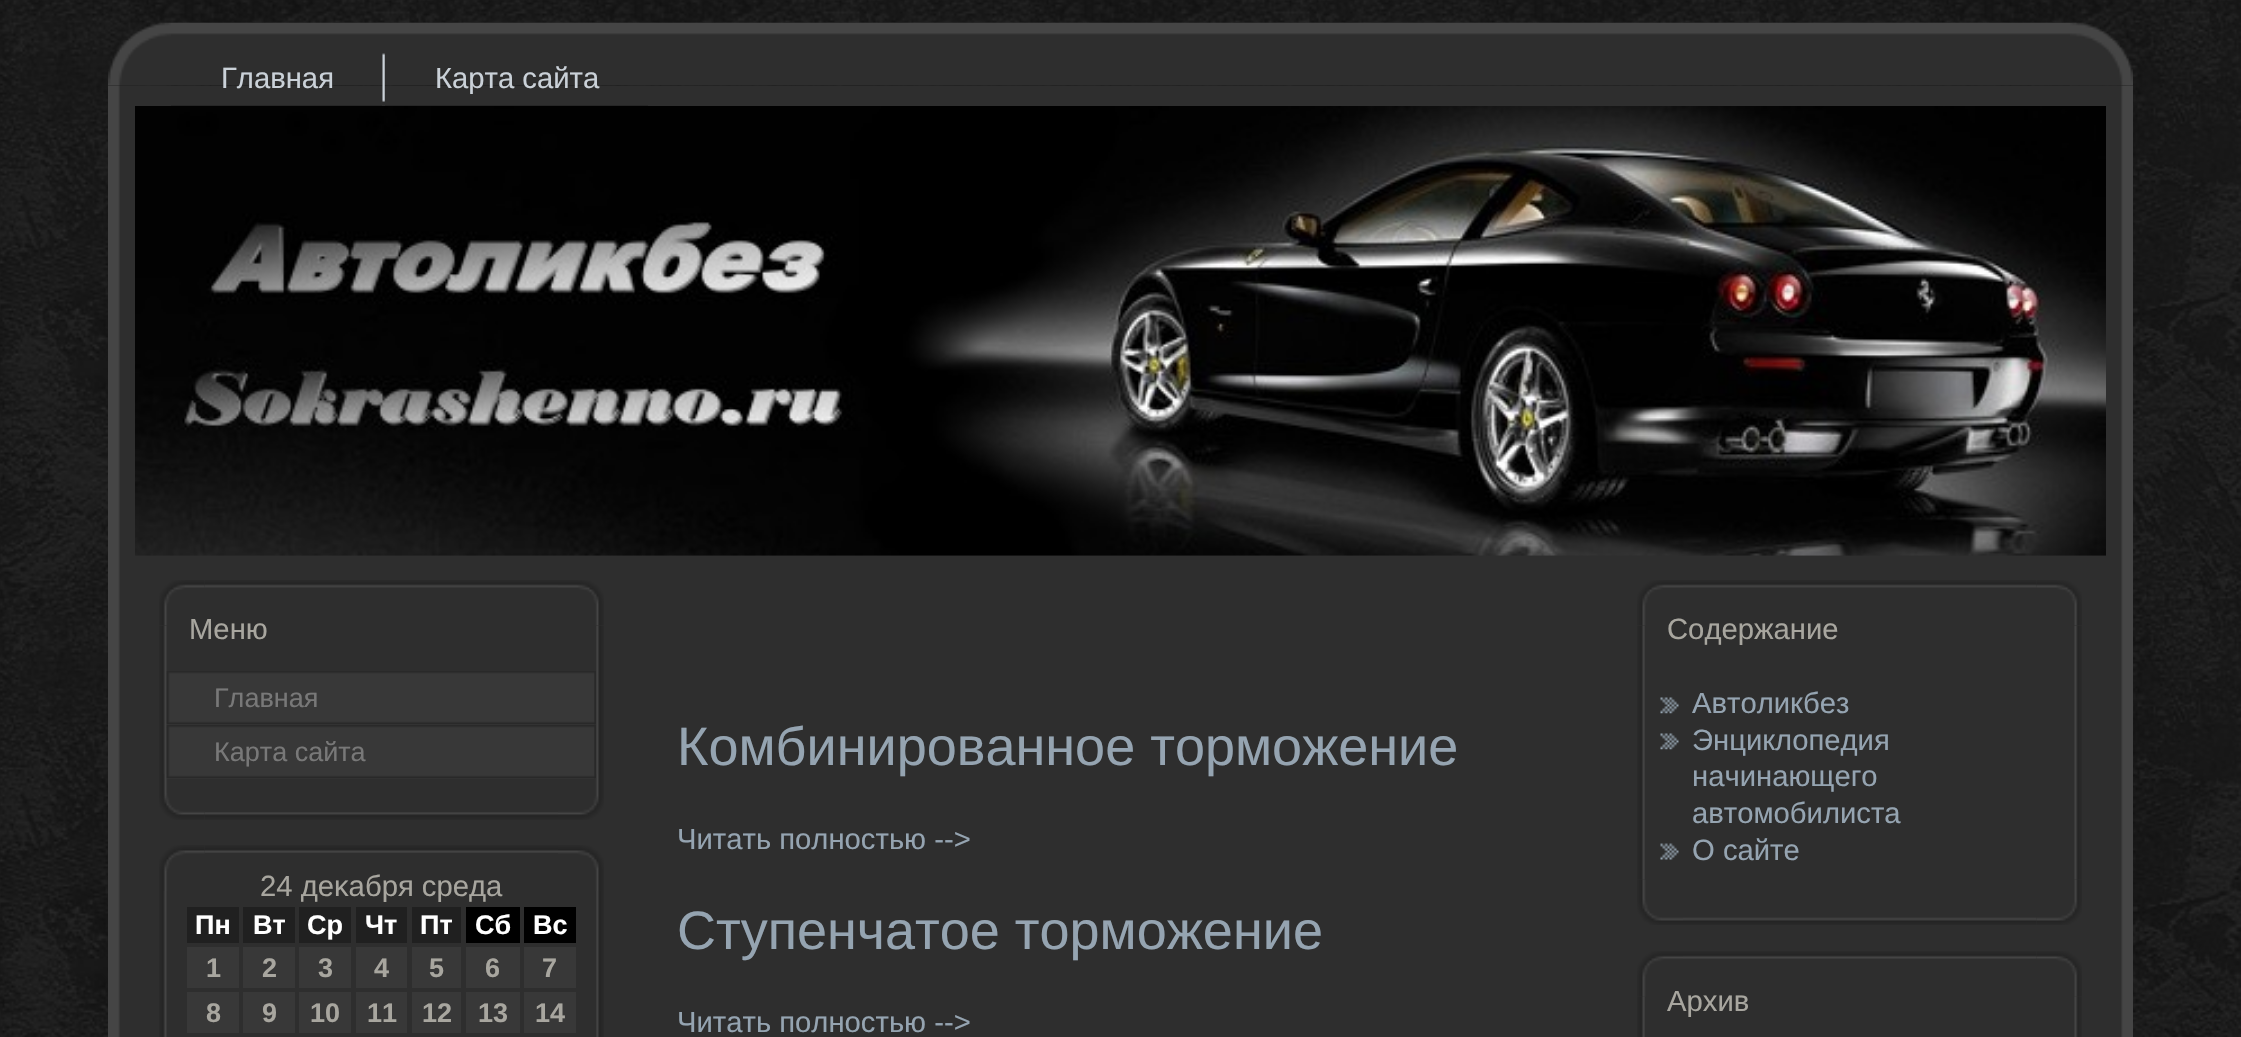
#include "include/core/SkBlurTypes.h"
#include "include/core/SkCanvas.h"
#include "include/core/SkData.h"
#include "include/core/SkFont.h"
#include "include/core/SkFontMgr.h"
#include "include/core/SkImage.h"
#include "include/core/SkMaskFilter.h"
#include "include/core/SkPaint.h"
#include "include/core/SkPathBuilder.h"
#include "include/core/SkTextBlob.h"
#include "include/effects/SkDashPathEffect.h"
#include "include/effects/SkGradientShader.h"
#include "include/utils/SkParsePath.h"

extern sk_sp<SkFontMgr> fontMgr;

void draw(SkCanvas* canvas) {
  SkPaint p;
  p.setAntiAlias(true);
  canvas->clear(SK_ColorWHITE);
  canvas->drawImageRect(SkImages::DeferredFromEncodedData(SkData::MakeFromFileName("images/1.png")), SkRect::MakeLTRB(0, 0, 2241, 1037), SkSamplingOptions());
  canvas->drawImageRect(SkImages::DeferredFromEncodedData(SkData::MakeFromFileName("images/2.png")), SkRect::MakeLTRB(108, 22, 171, 86), SkSamplingOptions());
  canvas->drawImageRect(SkImages::DeferredFromEncodedData(SkData::MakeFromFileName("images/3.png")), SkRect::MakeLTRB(171, 22, 2070, 86), SkSamplingOptions());
  canvas->drawImageRect(SkImages::DeferredFromEncodedData(SkData::MakeFromFileName("images/4.png")), SkRect::MakeLTRB(2070, 22, 2133, 86), SkSamplingOptions());
  canvas->drawImageRect(SkImages::DeferredFromEncodedData(SkData::MakeFromFileName("images/5.png")), SkRect::MakeLTRB(108, 85, 171, 1037), SkSamplingOptions());
  p.setColor(SkColorSetRGB(46, 46, 46));
  canvas->drawRect(SkRect::MakeLTRB(171, 86, 2070, 1037), p);
  p.setColor(SkColorSetRGB(38, 38, 38));
  canvas->drawRect(SkRect::MakeLTRB(171, 105, 382, 106), p);
  canvas->drawImageRect(SkImages::DeferredFromEncodedData(SkData::MakeFromFileName("images/6.png")), SkRect::MakeLTRB(382, 53, 385, 102), SkSamplingOptions());
  canvas->drawRect(SkRect::MakeLTRB(385, 105, 648, 106), p);
  canvas->drawImageRect(SkImages::DeferredFromEncodedData(SkData::MakeFromFileName("images/38.png")), SkRect::MakeLTRB(2070, 85, 2133, 1037), SkSamplingOptions());
  canvas->drawImageRect(SkImages::DeferredFromEncodedData(SkData::MakeFromFileName("images/7.png")), SkRect::MakeLTRB(135, 106, 2106, 556), SkSamplingOptions());
  canvas->drawImageRect(SkImages::DeferredFromEncodedData(SkData::MakeFromFileName("images/8.png")), SkRect::MakeLTRB(159, 580, 205, 626), SkSamplingOptions());
  canvas->drawImageRect(SkImages::DeferredFromEncodedData(SkData::MakeFromFileName("images/9.png")), SkRect::MakeLTRB(205, 580, 558, 588), SkSamplingOptions());
  canvas->drawImageRect(SkImages::DeferredFromEncodedData(SkData::MakeFromFileName("images/10.png")), SkRect::MakeLTRB(558, 580, 604, 626), SkSamplingOptions());
  canvas->drawImageRect(SkImages::DeferredFromEncodedData(SkData::MakeFromFileName("images/11.png")), SkRect::MakeLTRB(159, 626, 167, 774), SkSamplingOptions());
  canvas->drawImageRect(SkImages::DeferredFromEncodedData(SkData::MakeFromFileName("images/12.png")), SkRect::MakeLTRB(166, 671, 594, 725), SkSamplingOptions());
  canvas->drawImageRect(SkImages::DeferredFromEncodedData(SkData::MakeFromFileName("images/13.png")), SkRect::MakeLTRB(594, 671, 596, 724), SkSamplingOptions());
  canvas->drawImageRect(SkImages::DeferredFromEncodedData(SkData::MakeFromFileName("images/16.png")), SkRect::MakeLTRB(159, 774, 205, 820), SkSamplingOptions());
  canvas->drawImageRect(SkImages::DeferredFromEncodedData(SkData::MakeFromFileName("images/18.png")), SkRect::MakeLTRB(558, 774, 604, 820), SkSamplingOptions());
  canvas->drawImageRect(SkImages::DeferredFromEncodedData(SkData::MakeFromFileName("images/14.png")), SkRect::MakeLTRB(166, 725, 594, 779), SkSamplingOptions());
  canvas->drawImageRect(SkImages::DeferredFromEncodedData(SkData::MakeFromFileName("images/13.png")), SkRect::MakeLTRB(594, 725, 596, 778), SkSamplingOptions());
  canvas->drawImageRect(SkImages::DeferredFromEncodedData(SkData::MakeFromFileName("images/15.png")), SkRect::MakeLTRB(596, 626, 604, 774), SkSamplingOptions());
  canvas->drawImageRect(SkImages::DeferredFromEncodedData(SkData::MakeFromFileName("images/17.png")), SkRect::MakeLTRB(205, 812, 558, 820), SkSamplingOptions());
  canvas->drawImageRect(SkImages::DeferredFromEncodedData(SkData::MakeFromFileName("images/19.png")), SkRect::MakeLTRB(159, 845, 205, 891), SkSamplingOptions());
  canvas->drawImageRect(SkImages::DeferredFromEncodedData(SkData::MakeFromFileName("images/20.png")), SkRect::MakeLTRB(205, 845, 558, 853), SkSamplingOptions());
  canvas->drawImageRect(SkImages::DeferredFromEncodedData(SkData::MakeFromFileName("images/21.png")), SkRect::MakeLTRB(558, 845, 604, 891), SkSamplingOptions());
  canvas->drawImageRect(SkImages::DeferredFromEncodedData(SkData::MakeFromFileName("images/22.png")), SkRect::MakeLTRB(159, 891, 167, 1037), SkSamplingOptions());
  p.setColor(SkColorSetRGB(32, 32, 32));
  canvas->drawRect(SkRect::MakeLTRB(187, 907, 239, 943), p);
  canvas->drawRect(SkRect::MakeLTRB(243, 907, 295, 943), p);
  canvas->drawRect(SkRect::MakeLTRB(299, 907, 351, 943), p);
  canvas->drawRect(SkRect::MakeLTRB(356, 907, 407, 943), p);
  canvas->drawRect(SkRect::MakeLTRB(412, 907, 461, 943), p);
  p.setColor(SK_ColorBLACK);
  canvas->drawRect(SkRect::MakeLTRB(466, 907, 520, 943), p);
  canvas->drawRect(SkRect::MakeLTRB(524, 907, 576, 943), p);
  p.setColor(SkColorSetRGB(56, 56, 56));
  canvas->drawRect(SkRect::MakeLTRB(187, 947, 239, 988), p);
  canvas->drawRect(SkRect::MakeLTRB(243, 947, 295, 988), p);
  canvas->drawRect(SkRect::MakeLTRB(299, 947, 351, 988), p);
  canvas->drawRect(SkRect::MakeLTRB(356, 947, 407, 988), p);
  canvas->drawRect(SkRect::MakeLTRB(412, 947, 461, 988), p);
  canvas->drawRect(SkRect::MakeLTRB(466, 947, 520, 988), p);
  canvas->drawRect(SkRect::MakeLTRB(524, 947, 576, 988), p);
  canvas->drawRect(SkRect::MakeLTRB(187, 992, 239, 1033), p);
  canvas->drawRect(SkRect::MakeLTRB(243, 992, 295, 1033), p);
  canvas->drawRect(SkRect::MakeLTRB(299, 992, 351, 1033), p);
  canvas->drawRect(SkRect::MakeLTRB(356, 992, 407, 1033), p);
  canvas->drawRect(SkRect::MakeLTRB(412, 992, 461, 1033), p);
  canvas->drawRect(SkRect::MakeLTRB(466, 992, 520, 1033), p);
  canvas->drawRect(SkRect::MakeLTRB(524, 992, 576, 1033), p);
  canvas->drawImageRect(SkImages::DeferredFromEncodedData(SkData::MakeFromFileName("images/23.png")), SkRect::MakeLTRB(596, 891, 604, 1037), SkSamplingOptions());
  canvas->drawImageRect(SkImages::DeferredFromEncodedData(SkData::MakeFromFileName("images/24.png")), SkRect::MakeLTRB(1637, 580, 1683, 626), SkSamplingOptions());
  canvas->drawImageRect(SkImages::DeferredFromEncodedData(SkData::MakeFromFileName("images/9.png")), SkRect::MakeLTRB(1683, 580, 2036, 588), SkSamplingOptions());
  canvas->drawImageRect(SkImages::DeferredFromEncodedData(SkData::MakeFromFileName("images/25.png")), SkRect::MakeLTRB(2036, 580, 2082, 626), SkSamplingOptions());
  canvas->drawImageRect(SkImages::DeferredFromEncodedData(SkData::MakeFromFileName("images/30.png")), SkRect::MakeLTRB(1637, 879, 1683, 925), SkSamplingOptions());
  canvas->drawImageRect(SkImages::DeferredFromEncodedData(SkData::MakeFromFileName("images/26.png")), SkRect::MakeLTRB(1637, 626, 1645, 880), SkSamplingOptions());
  canvas->drawImageRect(SkImages::DeferredFromEncodedData(SkData::MakeFromFileName("images/27.png")), SkRect::MakeLTRB(1660, 697, 1679, 714), SkSamplingOptions());
  canvas->drawImageRect(SkImages::DeferredFromEncodedData(SkData::MakeFromFileName("images/27.png")), SkRect::MakeLTRB(1660, 733, 1679, 750), SkSamplingOptions());
  canvas->drawImageRect(SkImages::DeferredFromEncodedData(SkData::MakeFromFileName("images/28.png")), SkRect::MakeLTRB(1660, 843, 1679, 860), SkSamplingOptions());
  canvas->drawImageRect(SkImages::DeferredFromEncodedData(SkData::MakeFromFileName("images/32.png")), SkRect::MakeLTRB(2036, 879, 2082, 925), SkSamplingOptions());
  canvas->drawImageRect(SkImages::DeferredFromEncodedData(SkData::MakeFromFileName("images/29.png")), SkRect::MakeLTRB(2074, 626, 2082, 880), SkSamplingOptions());
  canvas->drawImageRect(SkImages::DeferredFromEncodedData(SkData::MakeFromFileName("images/31.png")), SkRect::MakeLTRB(1683, 917, 2036, 925), SkSamplingOptions());
  canvas->drawImageRect(SkImages::DeferredFromEncodedData(SkData::MakeFromFileName("images/33.png")), SkRect::MakeLTRB(1637, 951, 1683, 997), SkSamplingOptions());
  canvas->drawImageRect(SkImages::DeferredFromEncodedData(SkData::MakeFromFileName("images/34.png")), SkRect::MakeLTRB(1683, 951, 2036, 959), SkSamplingOptions());
  canvas->drawImageRect(SkImages::DeferredFromEncodedData(SkData::MakeFromFileName("images/35.png")), SkRect::MakeLTRB(2036, 951, 2082, 997), SkSamplingOptions());
  canvas->drawImageRect(SkImages::DeferredFromEncodedData(SkData::MakeFromFileName("images/36.png")), SkRect::MakeLTRB(1637, 997, 1645, 1037), SkSamplingOptions());
  canvas->drawImageRect(SkImages::DeferredFromEncodedData(SkData::MakeFromFileName("images/37.png")), SkRect::MakeLTRB(2074, 997, 2082, 1037), SkSamplingOptions());
  SkFont font1(fontMgr->matchFamilyStyle("Liberation Sans", SkFontStyle::Normal()), 29.25f);
  font1.setSubpixel(true);
  p.setColor(SkColorSetRGB(202, 209, 216));
  canvas->drawString("Главная", 221, 88, font1, p);
  canvas->drawString("Карта сайта", 435, 88, font1, p);
  p.setColor(SkColorSetRGB(168, 166, 159));
  canvas->drawString("Меню", 189, 639, font1, p);
  SkFont font2(fontMgr->matchFamilyStyle("Liberation Sans", SkFontStyle::Normal()), 27);
  font2.setSubpixel(true);
  p.setColor(SkColorSetRGB(120, 120, 120));
  canvas->drawString("Главная", 214, 707, font2, p);
  canvas->drawString("Карта сайта", 214, 761, font2, p);
  p.setColor(SkColorSetRGB(168, 166, 159));
  canvas->drawString("24 деκабря среда", 260, 896, font1, p);
  SkFont font3(fontMgr->matchFamilyStyle("Liberation Sans", SkFontStyle::Bold()), 27);
  font3.setSubpixel(true);
  p.setColor(SK_ColorWHITE);
  canvas->drawString("Пн", 195, 934, font3, p);
  canvas->drawString("Вт", 253, 934, font3, p);
  canvas->drawString("Ср", 307, 934, font3, p);
  canvas->drawString("Чт", 365, 934, font3, p);
  canvas->drawString("Пт", 420, 934, font3, p);
  canvas->drawString("Сб", 475, 934, font3, p);
  canvas->drawString("Вс", 533, 934, font3, p);
  p.setColor(SkColorSetRGB(168, 166, 159));
  canvas->drawString("1", 206, 977, font3, p);
  canvas->drawString("2", 262, 977, font3, p);
  canvas->drawString("3", 318, 977, font3, p);
  canvas->drawString("4", 374, 977, font3, p);
  canvas->drawString("5", 429, 977, font3, p);
  canvas->drawString("6", 485, 977, font3, p);
  canvas->drawString("7", 542, 977, font3, p);
  canvas->drawString("8", 206, 1022, font3, p);
  canvas->drawString("9", 262, 1022, font3, p);
  canvas->drawString("10", 310, 1022, font3, p);
  canvas->drawString("11", 367, 1022, font3, p);
  canvas->drawString("12", 422, 1022, font3, p);
  canvas->drawString("13", 478, 1022, font3, p);
  canvas->drawString("14", 535, 1022, font3, p);
  SkFont font4(fontMgr->matchFamilyStyle("Liberation Sans", SkFontStyle::Normal()), 54);
  font4.setSubpixel(true);
  p.setColor(SkColorSetRGB(149, 164, 177));
  canvas->drawString("Комбинированное торможение", 677, 765, font4, p);
  canvas->drawString("Читать полностью -->", 677, 849, font1, p);
  canvas->drawString("Ступенчатое торможение", 677, 949, font4, p);
  canvas->drawString("Читать полностью -->", 677, 1032, font1, p);
  p.setColor(SkColorSetRGB(168, 166, 159));
  canvas->drawString("Содержание", 1667, 639, font1, p);
  p.setColor(SkColorSetRGB(149, 164, 177));
  canvas->drawString("Автоликбез", 1692, 713, font1, p);
  canvas->drawString("Энциклопедия", 1692, 750, font1, p);
  canvas->drawString("начинающего", 1692, 786, font1, p);
  canvas->drawString("автомобилиста", 1692, 823, font1, p);
  canvas->drawString("О сайте", 1692, 860, font1, p);
  p.setColor(SkColorSetRGB(168, 166, 159));
  canvas->drawString("Архив", 1667, 1011, font1, p);
}
